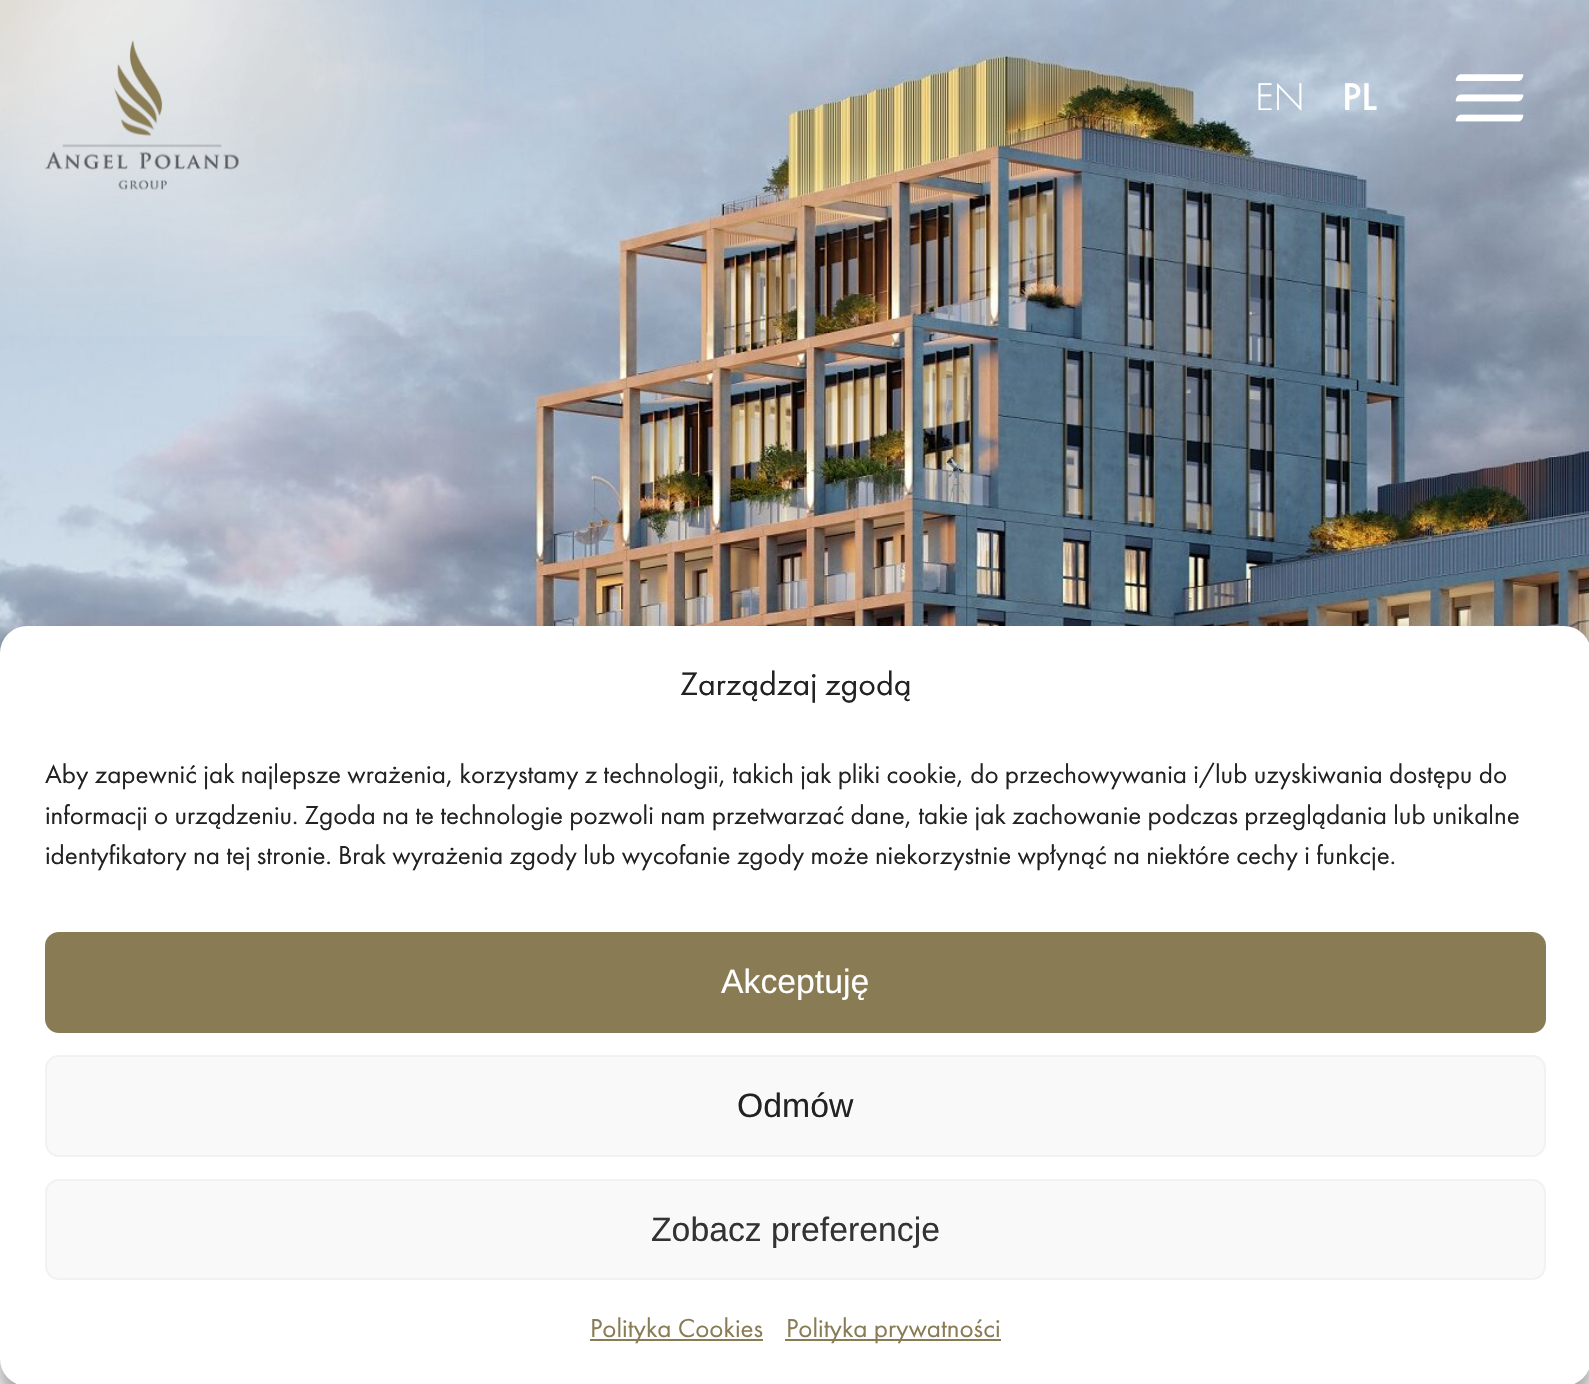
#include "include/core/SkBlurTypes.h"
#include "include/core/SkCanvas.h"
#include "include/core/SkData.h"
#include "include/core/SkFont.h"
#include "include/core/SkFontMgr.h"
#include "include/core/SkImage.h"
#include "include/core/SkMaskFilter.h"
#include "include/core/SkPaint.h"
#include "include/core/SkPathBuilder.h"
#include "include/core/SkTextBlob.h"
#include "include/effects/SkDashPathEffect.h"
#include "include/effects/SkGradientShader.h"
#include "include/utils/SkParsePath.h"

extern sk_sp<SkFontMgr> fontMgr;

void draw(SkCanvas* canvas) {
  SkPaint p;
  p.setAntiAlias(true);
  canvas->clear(SK_ColorWHITE);
  canvas->drawImageRect(SkImages::DeferredFromEncodedData(SkData::MakeFromFileName("images/1.png")), SkRect::MakeLTRB(0, 0, 1589, 653), SkSamplingOptions());
  canvas->drawImageRect(SkImages::DeferredFromEncodedData(SkData::MakeFromFileName("images/2.png")), SkRect::MakeLTRB(0, 0, 484, 336), SkSamplingOptions());
  canvas->drawImageRect(SkImages::DeferredFromEncodedData(SkData::MakeFromFileName("images/3.png")), SkRect::MakeLTRB(45, 40, 239, 190), SkSamplingOptions());
  canvas->drawImageRect(SkImages::DeferredFromEncodedData(SkData::MakeFromFileName("images/4.png")), SkRect::MakeLTRB(1455, 74, 1524, 122), SkSamplingOptions());
  p.setColor(SkColorSetARGB(59, 0, 0, 0));
  p.setMaskFilter(SkMaskFilter::MakeBlur(kNormal_SkBlurStyle, 7));
  canvas->drawRoundRect(SkRect::MakeLTRB(0, 639, 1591, 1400), 27, 27, p);
  p.setMaskFilter(nullptr);
  p.setColor(SkColorSetARGB(48, 0, 0, 0));
  p.setMaskFilter(SkMaskFilter::MakeBlur(kNormal_SkBlurStyle, 22.5f));
  canvas->drawRoundRect(SkRect::MakeLTRB(0, 648, 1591, 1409), 27, 27, p);
  p.setMaskFilter(nullptr);
  p.setColor(SK_ColorWHITE);
  canvas->drawRoundRect(SkRect::MakeLTRB(0, 626, 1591, 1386), 27, 27, p);
  p.setColor(SkColorSetRGB(137, 124, 85));
  canvas->drawRoundRect(SkRect::MakeLTRB(46, 933, 1545, 1032), 13, 13, p);
  p.setStyle(SkPaint::kStroke_Style);
  p.setStrokeWidth(2);
  canvas->drawRoundRect(SkRect::MakeLTRB(46, 933, 1545, 1032), 13, 13, p);
  p.setStyle(SkPaint::kFill_Style);
  p.setColor(SkColorSetRGB(249, 249, 249));
  canvas->drawRoundRect(SkRect::MakeLTRB(46, 1056, 1545, 1156), 13, 13, p);
  p.setStyle(SkPaint::kStroke_Style);
  p.setColor(SkColorSetRGB(242, 242, 242));
  canvas->drawRoundRect(SkRect::MakeLTRB(46, 1056, 1545, 1156), 13, 13, p);
  p.setStyle(SkPaint::kFill_Style);
  p.setColor(SkColorSetRGB(249, 249, 249));
  canvas->drawRoundRect(SkRect::MakeLTRB(46, 1180, 1545, 1279), 13, 13, p);
  p.setStyle(SkPaint::kStroke_Style);
  p.setColor(SkColorSetRGB(242, 242, 242));
  canvas->drawRoundRect(SkRect::MakeLTRB(46, 1180, 1545, 1279), 13, 13, p);
  p.setStyle(SkPaint::kFill_Style);
  p.setColor(SkColorSetRGB(137, 124, 85));
  canvas->drawRect(SkRect::MakeLTRB(590, 1339, 763, 1341), p);
  canvas->drawRect(SkRect::MakeLTRB(785, 1339, 1001, 1341), p);
  SkFont font1(fontMgr->matchFamilyStyle("Futura PT", SkFontStyle(300, SkFontStyle::kNormal_Width, SkFontStyle::kUpright_Slant)), 40);
  font1.setSubpixel(true);
  p.setColor(SK_ColorWHITE);
  canvas->drawString("EN", 1255, 110, font1, p);
  SkFont font2(fontMgr->matchFamilyStyle("Futura PT", SkFontStyle(500, SkFontStyle::kNormal_Width, SkFontStyle::kUpright_Slant)), 40);
  font2.setSubpixel(true);
  canvas->drawString("PL", 1342, 110, font2, p);
  SkFont font3(fontMgr->matchFamilyStyle("Futura PT", SkFontStyle::Normal()), 33.75f);
  font3.setSubpixel(true);
  p.setColor(SkColorSetRGB(34, 34, 34));
  canvas->drawString("Zarządzaj zgodą", 680, 695, font3, p);
  SkFont font4(fontMgr->matchFamilyStyle("Futura PT", SkFontStyle::Normal()), 27);
  font4.setSubpixel(true);
  canvas->drawString("Aby zapewnić jak najlepsze wrażenia, korzystamy z technologii, takich jak pliki cookie, do przechowywania i/lub uzyskiwania dostępu do", 45, 783, font4, p);
  canvas->drawString("informacji o urządzeniu. Zgoda na te technologie pozwoli nam przetwarzać dane, takie jak zachowanie podczas przeglądania lub unikalne", 45, 824, font4, p);
  canvas->drawString("identyfikatory na tej stronie. Brak wyrażenia zgody lub wycofanie zgody może niekorzystnie wpłynąć na niektóre cechy i funkcje.", 45, 864, font4, p);
  SkFont font5(fontMgr->matchFamilyStyle("Liberation Sans", SkFontStyle::Normal()), 33.75f);
  font5.setSubpixel(true);
  p.setColor(SK_ColorWHITE);
  canvas->drawString("Akceptuję", 721, 993, font5, p);
  p.setColor(SkColorSetRGB(34, 34, 34));
  canvas->drawString("Odmów", 737, 1117, font5, p);
  p.setColor(SkColorSetRGB(51, 51, 51));
  canvas->drawString("Zobacz preferencje", 651, 1241, font5, p);
  p.setColor(SkColorSetRGB(137, 124, 85));
  canvas->drawString("Polityka Cookies", 590, 1337, font4, p);
  canvas->drawString("Polityka prywatności", 786, 1337, font4, p);
}
